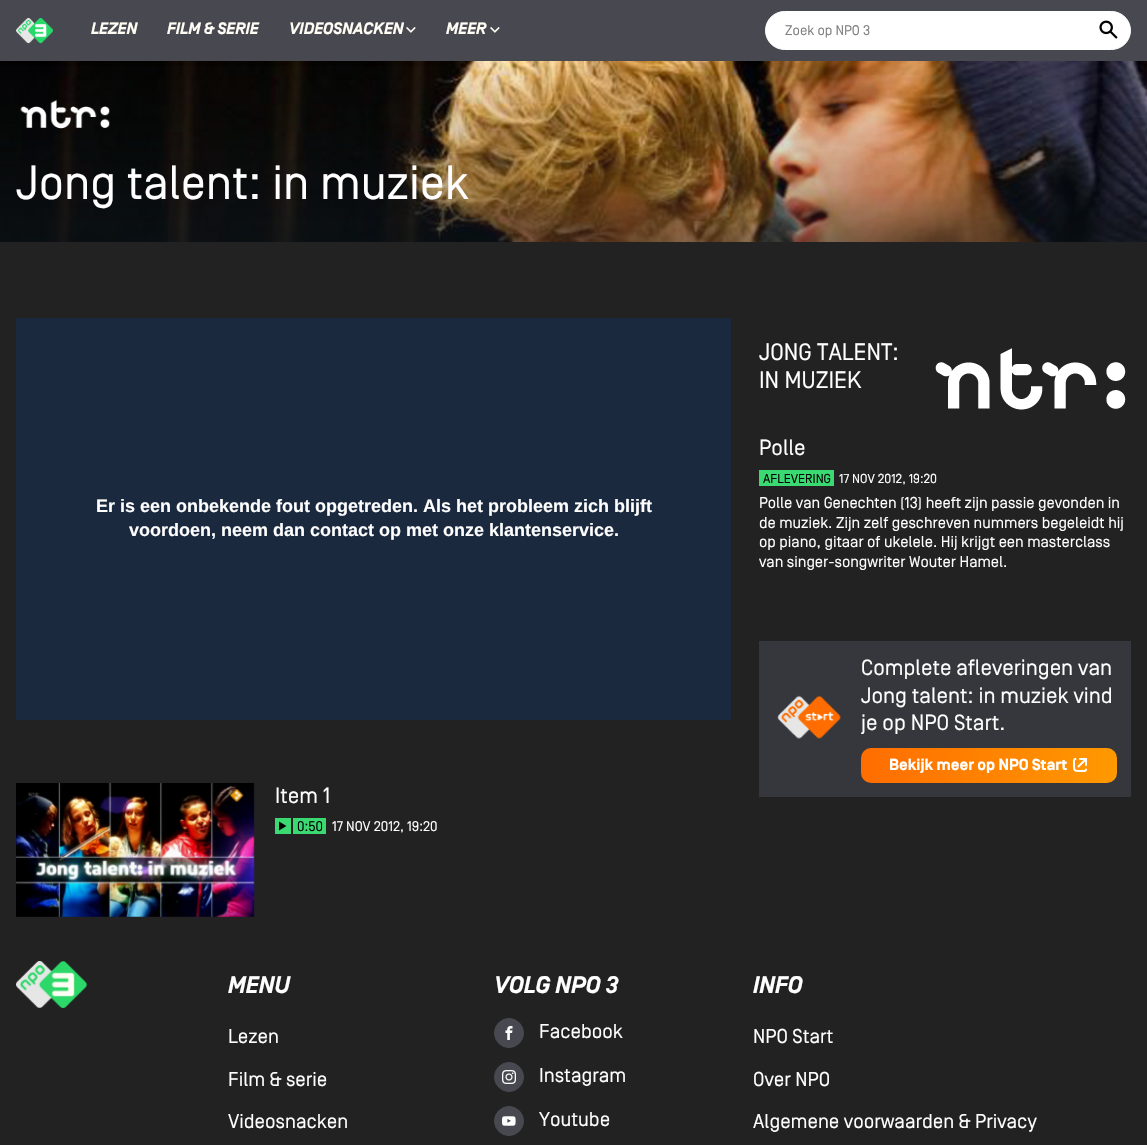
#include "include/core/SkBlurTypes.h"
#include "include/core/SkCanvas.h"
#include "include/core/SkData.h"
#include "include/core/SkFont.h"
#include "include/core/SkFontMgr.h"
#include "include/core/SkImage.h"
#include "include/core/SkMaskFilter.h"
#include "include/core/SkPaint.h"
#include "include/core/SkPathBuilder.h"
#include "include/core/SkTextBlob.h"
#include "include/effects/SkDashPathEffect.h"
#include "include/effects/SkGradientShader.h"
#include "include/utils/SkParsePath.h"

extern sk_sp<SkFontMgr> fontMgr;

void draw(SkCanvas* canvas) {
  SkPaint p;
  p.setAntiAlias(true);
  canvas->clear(SkColorSetRGB(34, 34, 34));
  p.setColor(SkColorSetRGB(72, 73, 80));
  canvas->drawRect(SkRect::MakeLTRB(0, 0, 1147, 61), p);
  canvas->drawImageRect(SkImages::DeferredFromEncodedData(SkData::MakeFromFileName("images/1.png")), SkRect::MakeLTRB(16, 18, 53, 44), SkSamplingOptions());
  canvas->drawImageRect(SkImages::DeferredFromEncodedData(SkData::MakeFromFileName("images/2.png")), SkRect::MakeLTRB(406, 27, 416, 33), SkSamplingOptions());
  canvas->drawImageRect(SkImages::DeferredFromEncodedData(SkData::MakeFromFileName("images/2.png")), SkRect::MakeLTRB(490, 27, 500, 33), SkSamplingOptions());
  p.setColor(SK_ColorWHITE);
  canvas->drawRoundRect(SkRect::MakeLTRB(765.5f, 11.5f, 1130.5f, 49.5f), 19, 19, p);
  p.setStyle(SkPaint::kStroke_Style);
  p.setStrokeWidth(1);
  canvas->drawRoundRect(SkRect::MakeLTRB(765.5f, 11.5f, 1130.5f, 49.5f), 19, 19, p);
  canvas->drawImageRect(SkImages::DeferredFromEncodedData(SkData::MakeFromFileName("images/3.png")), SkRect::MakeLTRB(1099, 20, 1118, 39), SkSamplingOptions());
  canvas->drawImageRect(SkImages::DeferredFromEncodedData(SkData::MakeFromFileName("images/4.png")), SkRect::MakeLTRB(0, 61, 1147, 242), SkSamplingOptions());
  p.setStyle(SkPaint::kFill_Style);
  {
    const SkColor colors[] = {SkColorSetARGB(0, 51, 88, 120), SkColorSetARGB(3, 51, 88, 120), SkColorSetARGB(13, 51, 88, 120), SkColorSetARGB(38, 51, 88, 120)};
    const float stops[] = {0, 0.65f, 0.8f, 1};
    const SkPoint ends[] = {{574, -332}, {574, 242}};
    p.setShader(SkGradientShader::MakeLinear(ends, colors, stops, 4, SkTileMode::kClamp));
    p.setAlpha(255);
  }
  canvas->drawRect(SkRect::MakeLTRB(0, 66, 1147, 242), p);
  canvas->drawImageRect(SkImages::DeferredFromEncodedData(SkData::MakeFromFileName("images/5.png")), SkRect::MakeLTRB(20, 99, 110, 129), SkSamplingOptions());
  p.setShader(nullptr);
  p.setColor(SkColorSetRGB(27, 41, 63));
  canvas->drawRect(SkRect::MakeLTRB(16, 318, 731, 720), p);
  p.setColor(SkColorSetRGB(26, 26, 26));
  canvas->drawRect(SkRect::MakeLTRB(16, 783, 254, 917), p);
  canvas->drawImageRect(SkImages::DeferredFromEncodedData(SkData::MakeFromFileName("images/6.png")), SkRect::MakeLTRB(16, 783, 255, 917), SkSamplingOptions());
  p.setColor(SkColorSetRGB(59, 217, 114));
  canvas->drawRect(SkRect::MakeLTRB(275, 818, 291, 834), p);
  p.setColor(SK_ColorBLACK);
  canvas->drawPath(SkPathBuilder(SkPathFillType::kEvenOdd).moveTo(286.5f, 826).lineTo(279, 830.5f).lineTo(279, 821.5f).close().detach(), p);
  p.setColor(SkColorSetRGB(59, 217, 114));
  canvas->drawRect(SkRect::MakeLTRB(293, 818, 326, 834), p);
  canvas->drawImageRect(SkImages::DeferredFromEncodedData(SkData::MakeFromFileName("images/7.png")), SkRect::MakeLTRB(935, 348, 1126, 410), SkSamplingOptions());
  canvas->drawRect(SkRect::MakeLTRB(759, 470, 834, 486), p);
  p.setColor(SkColorSetRGB(54, 55, 60));
  canvas->drawRect(SkRect::MakeLTRB(759, 641, 1131, 797), p);
  canvas->drawImageRect(SkImages::DeferredFromEncodedData(SkData::MakeFromFileName("images/8.png")), SkRect::MakeLTRB(777, 695, 842, 739), SkSamplingOptions());
  {
    const SkColor colors[] = {SkColorSetRGB(255, 109, 0), SkColorSetRGB(255, 153, 0)};
    const float stops[] = {0, 1};
    const SkPoint ends[] = {{861, 766}, {1117, 766}};
    p.setShader(SkGradientShader::MakeLinear(ends, colors, stops, 2, SkTileMode::kClamp));
    p.setAlpha(255);
  }
  canvas->drawRoundRect(SkRect::MakeLTRB(861, 748, 1117, 783), 10, 10, p);
  canvas->drawImageRect(SkImages::DeferredFromEncodedData(SkData::MakeFromFileName("images/9.png")), SkRect::MakeLTRB(1073, 758, 1087, 772), SkSamplingOptions());
  canvas->drawImageRect(SkImages::DeferredFromEncodedData(SkData::MakeFromFileName("images/10.png")), SkRect::MakeLTRB(16, 961, 87, 1008), SkSamplingOptions());
  p.setShader(nullptr);
  p.setColor(SkColorSetRGB(72, 73, 80));
  canvas->drawCircle(509, 1033, 14.5f, p);
  p.setStyle(SkPaint::kStroke_Style);
  canvas->drawCircle(509, 1033, 14.5f, p);
  canvas->drawImageRect(SkImages::DeferredFromEncodedData(SkData::MakeFromFileName("images/11.png")), SkRect::MakeLTRB(505, 1026, 513, 1040), SkSamplingOptions());
  p.setStyle(SkPaint::kFill_Style);
  canvas->drawCircle(509, 1077, 14.5f, p);
  p.setStyle(SkPaint::kStroke_Style);
  canvas->drawCircle(509, 1077, 14.5f, p);
  canvas->drawImageRect(SkImages::DeferredFromEncodedData(SkData::MakeFromFileName("images/12.png")), SkRect::MakeLTRB(502, 1070, 516, 1084), SkSamplingOptions());
  p.setStyle(SkPaint::kFill_Style);
  canvas->drawCircle(509, 1121, 14.5f, p);
  p.setStyle(SkPaint::kStroke_Style);
  canvas->drawCircle(509, 1121, 14.5f, p);
  canvas->drawImageRect(SkImages::DeferredFromEncodedData(SkData::MakeFromFileName("images/13.png")), SkRect::MakeLTRB(502, 1116, 516, 1126), SkSamplingOptions());
  SkFont font1(fontMgr->matchFamilyStyle("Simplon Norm", SkFontStyle::BoldItalic()), 16.5f);
  font1.setSubpixel(true);
  p.setStyle(SkPaint::kFill_Style);
  p.setColor(SkColorSetRGB(255, 253, 244));
  canvas->drawString("LEZEN", 91, 34, font1, p);
  canvas->drawString("FILM & SERIE", 167, 34, font1, p);
  canvas->drawString("VIDEOSNACKEN", 289, 34, font1, p);
  canvas->drawString("MEER", 446, 34, font1, p);
  SkFont font2(fontMgr->matchFamilyStyle("Simplon Norm", SkFontStyle::Normal()), 14);
  font2.setSubpixel(true);
  p.setColor(SkColorSetRGB(128, 128, 128));
  canvas->drawString("Zoek op NPO 3", 785, 35, font2, p);
  SkFont font3(fontMgr->matchFamilyStyle("Simplon Norm", SkFontStyle::Normal()), 48);
  font3.setSubpixel(true);
  p.setColor(SK_ColorWHITE);
  canvas->drawString("Jong talent: in muziek", 16, 199, font3, p);
  SkFont font4(fontMgr->matchFamilyStyle("Liberation Sans", SkFontStyle::Bold()), 18);
  font4.setSubpixel(true);
  canvas->drawString("Er is een onbekende fout opgetreden. Als het probleem zich blijft", 96, 512, font4, p);
  canvas->drawString("voordoen, neem dan contact op met onze klantenservice.", 129, 536, font4, p);
  SkFont font5(fontMgr->matchFamilyStyle("Simplon Norm", SkFontStyle::Normal()), 22);
  font5.setSubpixel(true);
  canvas->drawString("Item 1", 275, 803, font5, p);
  p.setColor(SK_ColorBLACK);
  canvas->drawString("0:50", 297, 831, font2, p);
  p.setColor(SK_ColorWHITE);
  canvas->drawString("17 NOV 2012, 19:20", 332, 831, font2, p);
  SkFont font6(fontMgr->matchFamilyStyle("Simplon Norm", SkFontStyle::Normal()), 23.75f);
  font6.setSubpixel(true);
  canvas->drawString("JONG TALENT:", 759, 360, font6, p);
  canvas->drawString("IN MUZIEK", 759, 388, font6, p);
  canvas->drawString("Polle", 759, 455, font5, p);
  SkFont font7(fontMgr->matchFamilyStyle("Simplon Norm", SkFontStyle::Normal()), 13);
  font7.setSubpixel(true);
  p.setColor(SK_ColorBLACK);
  canvas->drawString("AFLEVERING", 763, 483, font7, p);
  p.setColor(SK_ColorWHITE);
  canvas->drawString("17 NOV 2012, 19:20", 839, 483, font7, p);
  SkFont font8(fontMgr->matchFamilyStyle("Simplon Norm", SkFontStyle::Normal()), 15.75f);
  font8.setSubpixel(true);
  canvas->drawString("Polle van Genechten (13) heeft zijn passie gevonden in", 759, 508, font8, p);
  canvas->drawString("de muziek. Zijn zelf geschreven nummers begeleidt hij", 759, 528, font8, p);
  canvas->drawString("op piano, gitaar of ukelele. Hij krijgt een masterclass", 759, 547, font8, p);
  canvas->drawString("van singer-songwriter Wouter Hamel.", 759, 567, font8, p);
  canvas->drawString("Complete afleveringen van", 861, 675, font5, p);
  canvas->drawString("Jong talent: in muziek vind", 861, 703, font5, p);
  canvas->drawString("je op NPO Start.", 861, 730, font5, p);
  SkFont font9(fontMgr->matchFamilyStyle("Simplon Norm", SkFontStyle::Bold()), 16);
  font9.setSubpixel(true);
  canvas->drawString("Bekijk meer op NPO Start", 889, 770, font9, p);
  SkFont font10(fontMgr->matchFamilyStyle("Simplon Norm", SkFontStyle::BoldItalic()), 24);
  font10.setSubpixel(true);
  canvas->drawString("MENU", 228, 993, font10, p);
  SkFont font11(fontMgr->matchFamilyStyle("Simplon Norm", SkFontStyle::Normal()), 20);
  font11.setSubpixel(true);
  canvas->drawString("Lezen", 228, 1043, font11, p);
  canvas->drawString("Film & serie", 228, 1086, font11, p);
  canvas->drawString("Videosnacken", 228, 1128, font11, p);
  canvas->drawString("VOLG NPO 3", 494, 993, font10, p);
  canvas->drawString("Facebook", 539, 1038, font11, p);
  canvas->drawString("Instagram", 539, 1082, font11, p);
  canvas->drawString("Youtube", 539, 1126, font11, p);
  canvas->drawString("INFO", 753, 993, font10, p);
  canvas->drawString("NPO Start", 753, 1043, font11, p);
  canvas->drawString("Over NPO", 753, 1086, font11, p);
  canvas->drawString("Algemene voorwaarden & Privacy", 753, 1128, font11, p);
}
